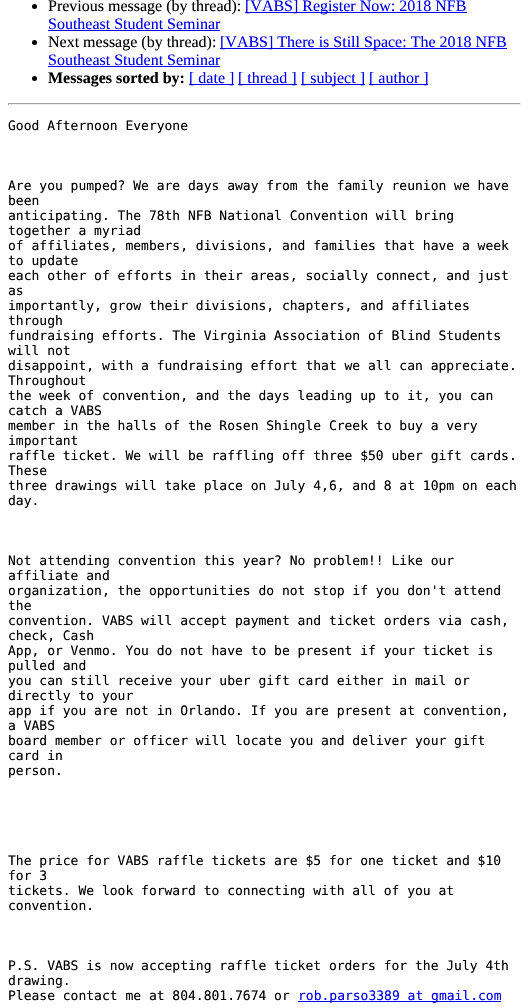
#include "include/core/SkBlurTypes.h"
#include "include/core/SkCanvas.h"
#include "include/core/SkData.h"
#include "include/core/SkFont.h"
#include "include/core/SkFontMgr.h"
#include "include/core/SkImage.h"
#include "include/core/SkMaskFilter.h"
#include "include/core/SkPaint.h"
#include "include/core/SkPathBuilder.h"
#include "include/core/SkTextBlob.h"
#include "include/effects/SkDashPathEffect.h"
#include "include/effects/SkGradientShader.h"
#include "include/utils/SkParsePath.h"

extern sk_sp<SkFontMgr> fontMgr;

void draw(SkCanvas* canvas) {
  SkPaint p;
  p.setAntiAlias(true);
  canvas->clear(SK_ColorWHITE);
  p.setColor(SK_ColorBLACK);
  canvas->drawCircle(34.5f, 6.5f, 2.5f, p);
  p.setColor(SkColorSetRGB(0, 0, 238));
  canvas->drawRect(SkRect::MakeLTRB(245, 12, 467, 13), p);
  canvas->drawRect(SkRect::MakeLTRB(48, 30, 220, 31), p);
  p.setColor(SK_ColorBLACK);
  canvas->drawCircle(34.5f, 42.5f, 2.5f, p);
  p.setColor(SkColorSetRGB(0, 0, 238));
  canvas->drawRect(SkRect::MakeLTRB(220, 48, 507, 49), p);
  canvas->drawRect(SkRect::MakeLTRB(48, 66, 220, 67), p);
  p.setColor(SK_ColorBLACK);
  canvas->drawCircle(34.5f, 78.5f, 2.5f, p);
  p.setColor(SkColorSetRGB(0, 0, 238));
  canvas->drawRect(SkRect::MakeLTRB(189, 84, 234, 85), p);
  canvas->drawRect(SkRect::MakeLTRB(238, 84, 297, 85), p);
  canvas->drawRect(SkRect::MakeLTRB(301, 84, 365, 85), p);
  canvas->drawRect(SkRect::MakeLTRB(369, 84, 428, 85), p);
  p.setColor(SkColorSetRGB(159, 159, 159));
  canvas->drawRect(SkRect::MakeLTRB(8, 103, 521, 104), p);
  p.setColor(SkColorSetRGB(238, 238, 238));
  canvas->drawRect(SkRect::MakeLTRB(520, 103, 521, 105), p);
  canvas->drawRect(SkRect::MakeLTRB(8, 104, 521, 105), p);
  p.setColor(SkColorSetRGB(159, 159, 159));
  canvas->drawRect(SkRect::MakeLTRB(8, 103, 9, 105), p);
  p.setColor(SkColorSetRGB(0, 0, 238));
  canvas->drawRect(SkRect::MakeLTRB(298, 1001, 501, 1002), p);
  SkFont font1(fontMgr->matchFamilyStyle("Liberation Serif", SkFontStyle::Normal()), 16);
  font1.setSubpixel(true);
  p.setColor(SK_ColorBLACK);
  canvas->drawString("Previous message (by thread):", 48, 11, font1, p);
  p.setColor(SkColorSetRGB(0, 0, 238));
  canvas->drawString("[VABS] Register Now: 2018 NFB", 245, 11, font1, p);
  canvas->drawString("Southeast Student Seminar", 48, 29, font1, p);
  p.setColor(SK_ColorBLACK);
  canvas->drawString("Next message (by thread):", 48, 47, font1, p);
  p.setColor(SkColorSetRGB(0, 0, 238));
  canvas->drawString("[VABS] There is Still Space: The 2018 NFB", 220, 47, font1, p);
  canvas->drawString("Southeast Student Seminar", 48, 65, font1, p);
  SkFont font2(fontMgr->matchFamilyStyle("Liberation Serif", SkFontStyle::Bold()), 16);
  font2.setSubpixel(true);
  p.setColor(SK_ColorBLACK);
  canvas->drawString("Messages sorted by:", 48, 83, font2, p);
  p.setColor(SkColorSetRGB(0, 0, 238));
  canvas->drawString("[ date ]", 189, 83, font1, p);
  canvas->drawString("[ thread ]", 238, 83, font1, p);
  canvas->drawString("[ subject ]", 301, 83, font1, p);
  canvas->drawString("[ author ]", 369, 83, font1, p);
  SkFont font3(fontMgr->matchFamilyStyle("DejaVu Sans Mono", SkFontStyle::Normal()), 13);
  font3.setSubpixel(true);
  p.setColor(SK_ColorBLACK);
  canvas->drawString("Good Afternoon Everyone", 8, 130, font3, p);
  canvas->drawString("Are you pumped? We are days away from the family reunion we have", 8, 190, font3, p);
  canvas->drawString("been", 8, 205, font3, p);
  canvas->drawString("anticipating. The 78th NFB National Convention will bring", 8, 220, font3, p);
  canvas->drawString("together a myriad", 8, 235, font3, p);
  canvas->drawString("of affiliates, members, divisions, and families that have a week", 8, 250, font3, p);
  canvas->drawString("to update", 8, 265, font3, p);
  canvas->drawString("each other of efforts in their areas, socially connect, and just", 8, 280, font3, p);
  canvas->drawString("as", 8, 295, font3, p);
  canvas->drawString("importantly, grow their divisions, chapters, and affiliates", 8, 310, font3, p);
  canvas->drawString("through", 8, 325, font3, p);
  canvas->drawString("fundraising efforts. The Virginia Association of Blind Students", 8, 340, font3, p);
  canvas->drawString("will not", 8, 355, font3, p);
  canvas->drawString("disappoint, with a fundraising effort that we all can appreciate.", 8, 370, font3, p);
  canvas->drawString("Throughout", 8, 385, font3, p);
  canvas->drawString("the week of convention, and the days leading up to it, you can", 8, 400, font3, p);
  canvas->drawString("catch a VABS", 8, 415, font3, p);
  canvas->drawString("member in the halls of the Rosen Shingle Creek to buy a very", 8, 430, font3, p);
  canvas->drawString("important", 8, 445, font3, p);
  canvas->drawString("raffle ticket. We will be raffling off three $50 uber gift cards.", 8, 460, font3, p);
  canvas->drawString("These", 8, 475, font3, p);
  canvas->drawString("three drawings will take place on July 4,6, and 8 at 10pm on each", 8, 490, font3, p);
  canvas->drawString("day.", 8, 505, font3, p);
  canvas->drawString("Not attending convention this year? No problem!! Like our", 8, 565, font3, p);
  canvas->drawString("affiliate and", 8, 580, font3, p);
  canvas->drawString("organization, the opportunities do not stop if you don't attend", 8, 595, font3, p);
  canvas->drawString("the", 8, 610, font3, p);
  canvas->drawString("convention. VABS will accept payment and ticket orders via cash,", 8, 625, font3, p);
  canvas->drawString("check, Cash", 8, 640, font3, p);
  canvas->drawString("App, or Venmo. You do not have to be present if your ticket is", 8, 655, font3, p);
  canvas->drawString("pulled and", 8, 670, font3, p);
  canvas->drawString("you can still receive your uber gift card either in mail or", 8, 685, font3, p);
  canvas->drawString("directly to your", 8, 700, font3, p);
  canvas->drawString("app if you are not in Orlando. If you are present at convention,", 8, 715, font3, p);
  canvas->drawString("a VABS", 8, 730, font3, p);
  canvas->drawString("board member or officer will locate you and deliver your gift", 8, 745, font3, p);
  canvas->drawString("card in", 8, 760, font3, p);
  canvas->drawString("person.", 8, 775, font3, p);
  canvas->drawString("The price for VABS raffle tickets are $5 for one ticket and $10", 8, 865, font3, p);
  canvas->drawString("for 3", 8, 880, font3, p);
  canvas->drawString("tickets. We look forward to connecting with all of you at", 8, 895, font3, p);
  canvas->drawString("convention.", 8, 910, font3, p);
  canvas->drawString("P.S. VABS is now accepting raffle ticket orders for the July 4th", 8, 970, font3, p);
  canvas->drawString("drawing.", 8, 985, font3, p);
  canvas->drawString("Please contact me at 804.801.7674 or", 8, 1000, font3, p);
  p.setColor(SkColorSetRGB(0, 0, 238));
  canvas->drawString("rob.parso3389 at gmail.com", 298, 1000, font3, p);
}
